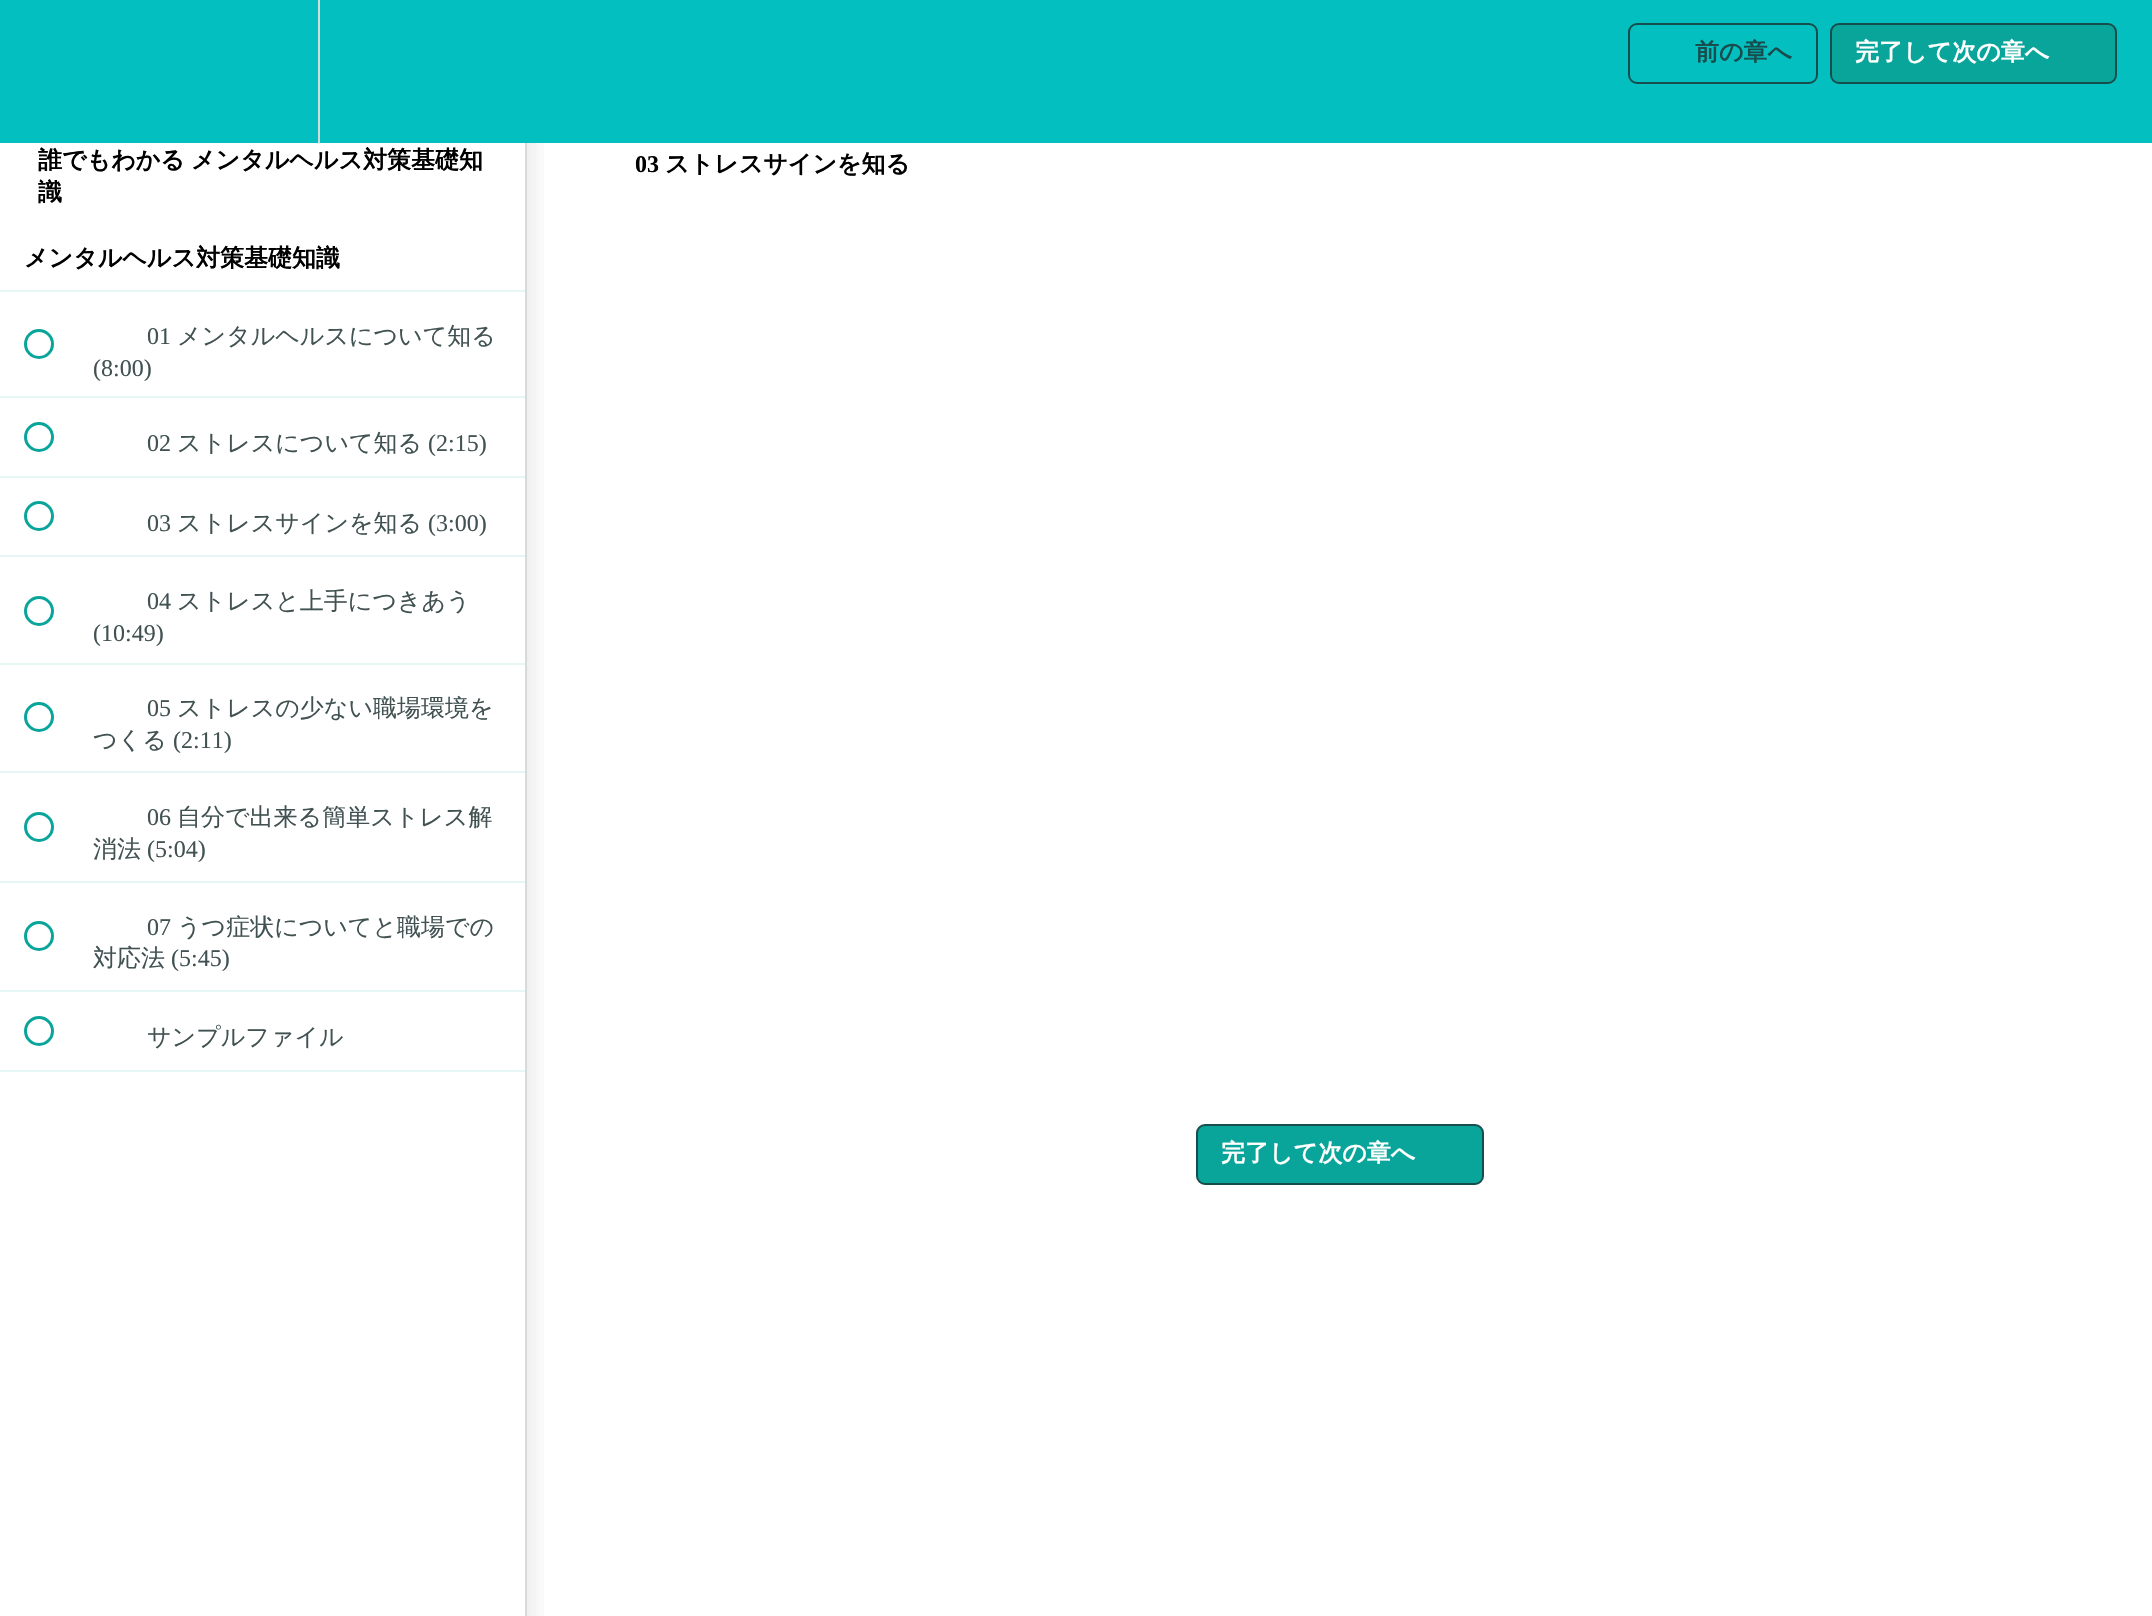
#include "include/core/SkBlurTypes.h"
#include "include/core/SkCanvas.h"
#include "include/core/SkData.h"
#include "include/core/SkFont.h"
#include "include/core/SkFontMgr.h"
#include "include/core/SkImage.h"
#include "include/core/SkMaskFilter.h"
#include "include/core/SkPaint.h"
#include "include/core/SkPathBuilder.h"
#include "include/core/SkTextBlob.h"
#include "include/effects/SkDashPathEffect.h"
#include "include/effects/SkGradientShader.h"
#include "include/utils/SkParsePath.h"

extern sk_sp<SkFontMgr> fontMgr;

void draw(SkCanvas* canvas) {
  SkPaint p;
  p.setAntiAlias(true);
  auto spacedText = [&](const char* s, float x, float y, const SkFont& font, const SkPaint& ink, float letter, float word) {
    std::vector<SkGlyphID> glyphs(font.countText(s, strlen(s), SkTextEncoding::kUTF8));
    std::vector<float> xs(glyphs.size());
    font.textToGlyphs(s, strlen(s), SkTextEncoding::kUTF8, glyphs);
    font.getXPos(glyphs, xs, x);
    float extra = 0;
    for (size_t i = 0; i < glyphs.size(); i++) {
      xs[i] += extra;
      extra += letter + word * (glyphs[i] == font.unicharToGlyph(' '));
    }
    canvas->drawTextBlob(SkTextBlob::MakeFromPosHGlyphs(glyphs, xs, y, font), 0, 0, ink);
  };
  canvas->clear(SK_ColorWHITE);
  canvas->save();
  canvas->clipRect(SkRect::MakeLTRB(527, 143, 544, 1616));
  p.setColor(SkColorSetARGB(38, 32, 39, 45));
  p.setMaskFilter(SkMaskFilter::MakeBlur(kNormal_SkBlurStyle, 15));
  canvas->drawRect(SkRect::MakeLTRB(0, 117, 527, 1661), p);
  p.setMaskFilter(nullptr);
  canvas->restore();
  p.setColor(SkColorSetRGB(4, 191, 191));
  canvas->drawRect(SkRect::MakeLTRB(0, 0, 2152, 143), p);
  p.setColor(SkColorSetRGB(215, 218, 219));
  canvas->drawRect(SkRect::MakeLTRB(318, 0, 320, 143), p);
  p.setStyle(SkPaint::kStroke_Style);
  p.setStrokeWidth(2);
  p.setColor(SkColorSetRGB(23, 77, 77));
  canvas->drawRoundRect(SkRect::MakeLTRB(1629, 24, 1817, 83), 8, 8, p);
  p.setStyle(SkPaint::kFill_Style);
  p.setColor(SkColorSetRGB(9, 165, 154));
  canvas->drawRoundRect(SkRect::MakeLTRB(1831, 24, 2116, 83), 8, 8, p);
  p.setStyle(SkPaint::kStroke_Style);
  p.setColor(SkColorSetRGB(23, 77, 77));
  canvas->drawRoundRect(SkRect::MakeLTRB(1831, 24, 2116, 83), 8, 8, p);
  p.setStyle(SkPaint::kFill_Style);
  p.setColor(SkColorSetRGB(215, 218, 219));
  canvas->drawRect(SkRect::MakeLTRB(525, 143, 527, 1616), p);
  p.setColor(SkColorSetRGB(230, 246, 245));
  canvas->drawRect(SkRect::MakeLTRB(0, 290, 525, 292), p);
  canvas->drawRect(SkRect::MakeLTRB(0, 396, 525, 398), p);
  p.setStyle(SkPaint::kStroke_Style);
  p.setStrokeWidth(3);
  p.setColor(SkColorSetRGB(9, 165, 154));
  canvas->drawCircle(39, 344, 13.5f, p);
  p.setStyle(SkPaint::kFill_Style);
  p.setColor(SkColorSetRGB(230, 246, 245));
  canvas->drawRect(SkRect::MakeLTRB(0, 476, 525, 478), p);
  p.setStyle(SkPaint::kStroke_Style);
  p.setColor(SkColorSetRGB(9, 165, 154));
  canvas->drawCircle(39, 437, 13.5f, p);
  p.setStyle(SkPaint::kFill_Style);
  p.setColor(SkColorSetRGB(230, 246, 245));
  canvas->drawRect(SkRect::MakeLTRB(0, 555, 525, 557), p);
  p.setStyle(SkPaint::kStroke_Style);
  p.setColor(SkColorSetRGB(9, 165, 154));
  canvas->drawCircle(39, 516, 13.5f, p);
  p.setStyle(SkPaint::kFill_Style);
  p.setColor(SkColorSetRGB(230, 246, 245));
  canvas->drawRect(SkRect::MakeLTRB(0, 663, 525, 665), p);
  p.setStyle(SkPaint::kStroke_Style);
  p.setColor(SkColorSetRGB(9, 165, 154));
  canvas->drawCircle(39, 611, 13.5f, p);
  p.setStyle(SkPaint::kFill_Style);
  p.setColor(SkColorSetRGB(230, 246, 245));
  canvas->drawRect(SkRect::MakeLTRB(0, 771, 525, 773), p);
  p.setStyle(SkPaint::kStroke_Style);
  p.setColor(SkColorSetRGB(9, 165, 154));
  canvas->drawCircle(39, 717, 13.5f, p);
  p.setStyle(SkPaint::kFill_Style);
  p.setColor(SkColorSetRGB(230, 246, 245));
  canvas->drawRect(SkRect::MakeLTRB(0, 881, 525, 883), p);
  p.setStyle(SkPaint::kStroke_Style);
  p.setColor(SkColorSetRGB(9, 165, 154));
  canvas->drawCircle(39, 827, 13.5f, p);
  p.setStyle(SkPaint::kFill_Style);
  p.setColor(SkColorSetRGB(230, 246, 245));
  canvas->drawRect(SkRect::MakeLTRB(0, 990, 525, 992), p);
  p.setStyle(SkPaint::kStroke_Style);
  p.setColor(SkColorSetRGB(9, 165, 154));
  canvas->drawCircle(39, 936, 13.5f, p);
  p.setStyle(SkPaint::kFill_Style);
  p.setColor(SkColorSetRGB(230, 246, 245));
  canvas->drawRect(SkRect::MakeLTRB(0, 1070, 525, 1072), p);
  p.setStyle(SkPaint::kStroke_Style);
  p.setColor(SkColorSetRGB(9, 165, 154));
  canvas->drawCircle(39, 1031, 13.5f, p);
  p.setStyle(SkPaint::kFill_Style);
  canvas->drawRoundRect(SkRect::MakeLTRB(1197, 1125, 1483, 1184), 8, 8, p);
  p.setStyle(SkPaint::kStroke_Style);
  p.setStrokeWidth(2);
  p.setColor(SkColorSetRGB(23, 77, 77));
  canvas->drawRoundRect(SkRect::MakeLTRB(1197, 1125, 1483, 1184), 8, 8, p);
  SkFont font1(fontMgr->matchFamilyStyle("WenQuanYi Zen Hei", SkFontStyle::Bold()), 24);
  font1.setSubpixel(true);
  p.setStyle(SkPaint::kFill_Style);
  canvas->drawString("前の章へ", 1695, 60, font1, p);
  p.setColor(SK_ColorWHITE);
  canvas->drawString("完了して次の章へ", 1855, 60, font1, p);
  p.setColor(SK_ColorBLACK);
  spacedText("誰でもわかる メンタルヘルス対策基礎知", 38, 168, font1, p, 0, -1);
  canvas->drawString("識", 38, 200, font1, p);
  canvas->drawString("メンタルヘルス対策基礎知識", 24, 266, font1, p);
  SkFont font2(fontMgr->matchFamilyStyle("Liberation Serif", SkFontStyle::Normal()), 24);
  font2.setSubpixel(true);
  p.setColor(SkColorSetRGB(66, 82, 82));
  canvas->drawString("01", 147, 344, font2, p);
  SkFont font3(fontMgr->matchFamilyStyle("WenQuanYi Zen Hei", SkFontStyle(500, SkFontStyle::kNormal_Width, SkFontStyle::kUpright_Slant)), 24);
  font3.setSubpixel(true);
  canvas->drawString("メンタルヘルスについて知る", 177, 344, font3, p);
  canvas->drawString("(8:00)", 93, 376, font2, p);
  canvas->drawString("02", 147, 451, font2, p);
  canvas->drawString("ストレスについて知る", 177, 451, font3, p);
  canvas->drawString("(2:15)", 428, 451, font2, p);
  canvas->drawString("03", 147, 531, font2, p);
  canvas->drawString("ストレスサインを知る", 177, 531, font3, p);
  canvas->drawString("(3:00)", 428, 531, font2, p);
  canvas->drawString("04", 147, 609, font2, p);
  canvas->drawString("ストレスと上手につきあう", 177, 609, font3, p);
  canvas->drawString("(10:49)", 93, 641, font2, p);
  canvas->drawString("05", 147, 716, font2, p);
  canvas->drawString("ストレスの少ない職場環境を", 177, 716, font3, p);
  canvas->drawString("つくる", 93, 748, font3, p);
  canvas->drawString("(2:11)", 173, 748, font2, p);
  canvas->drawString("06", 147, 825, font2, p);
  canvas->drawString("自分で出来る簡単ストレス解", 177, 825, font3, p);
  canvas->drawString("消法", 93, 857, font3, p);
  canvas->drawString("(5:04)", 147, 857, font2, p);
  canvas->drawString("07", 147, 935, font2, p);
  canvas->drawString("うつ症状についてと職場での", 177, 935, font3, p);
  canvas->drawString("対応法", 93, 966, font3, p);
  canvas->drawString("(5:45)", 171, 966, font2, p);
  canvas->drawString("サンプルファイル", 147, 1045, font3, p);
  SkFont font4(fontMgr->matchFamilyStyle("Liberation Serif", SkFontStyle::Bold()), 24);
  font4.setSubpixel(true);
  p.setColor(SK_ColorBLACK);
  canvas->drawString("03", 635, 172, font4, p);
  canvas->drawString("ストレスサインを知る", 665, 172, font1, p);
  p.setColor(SK_ColorWHITE);
  canvas->drawString("完了して次の章へ", 1221, 1161, font1, p);
}
